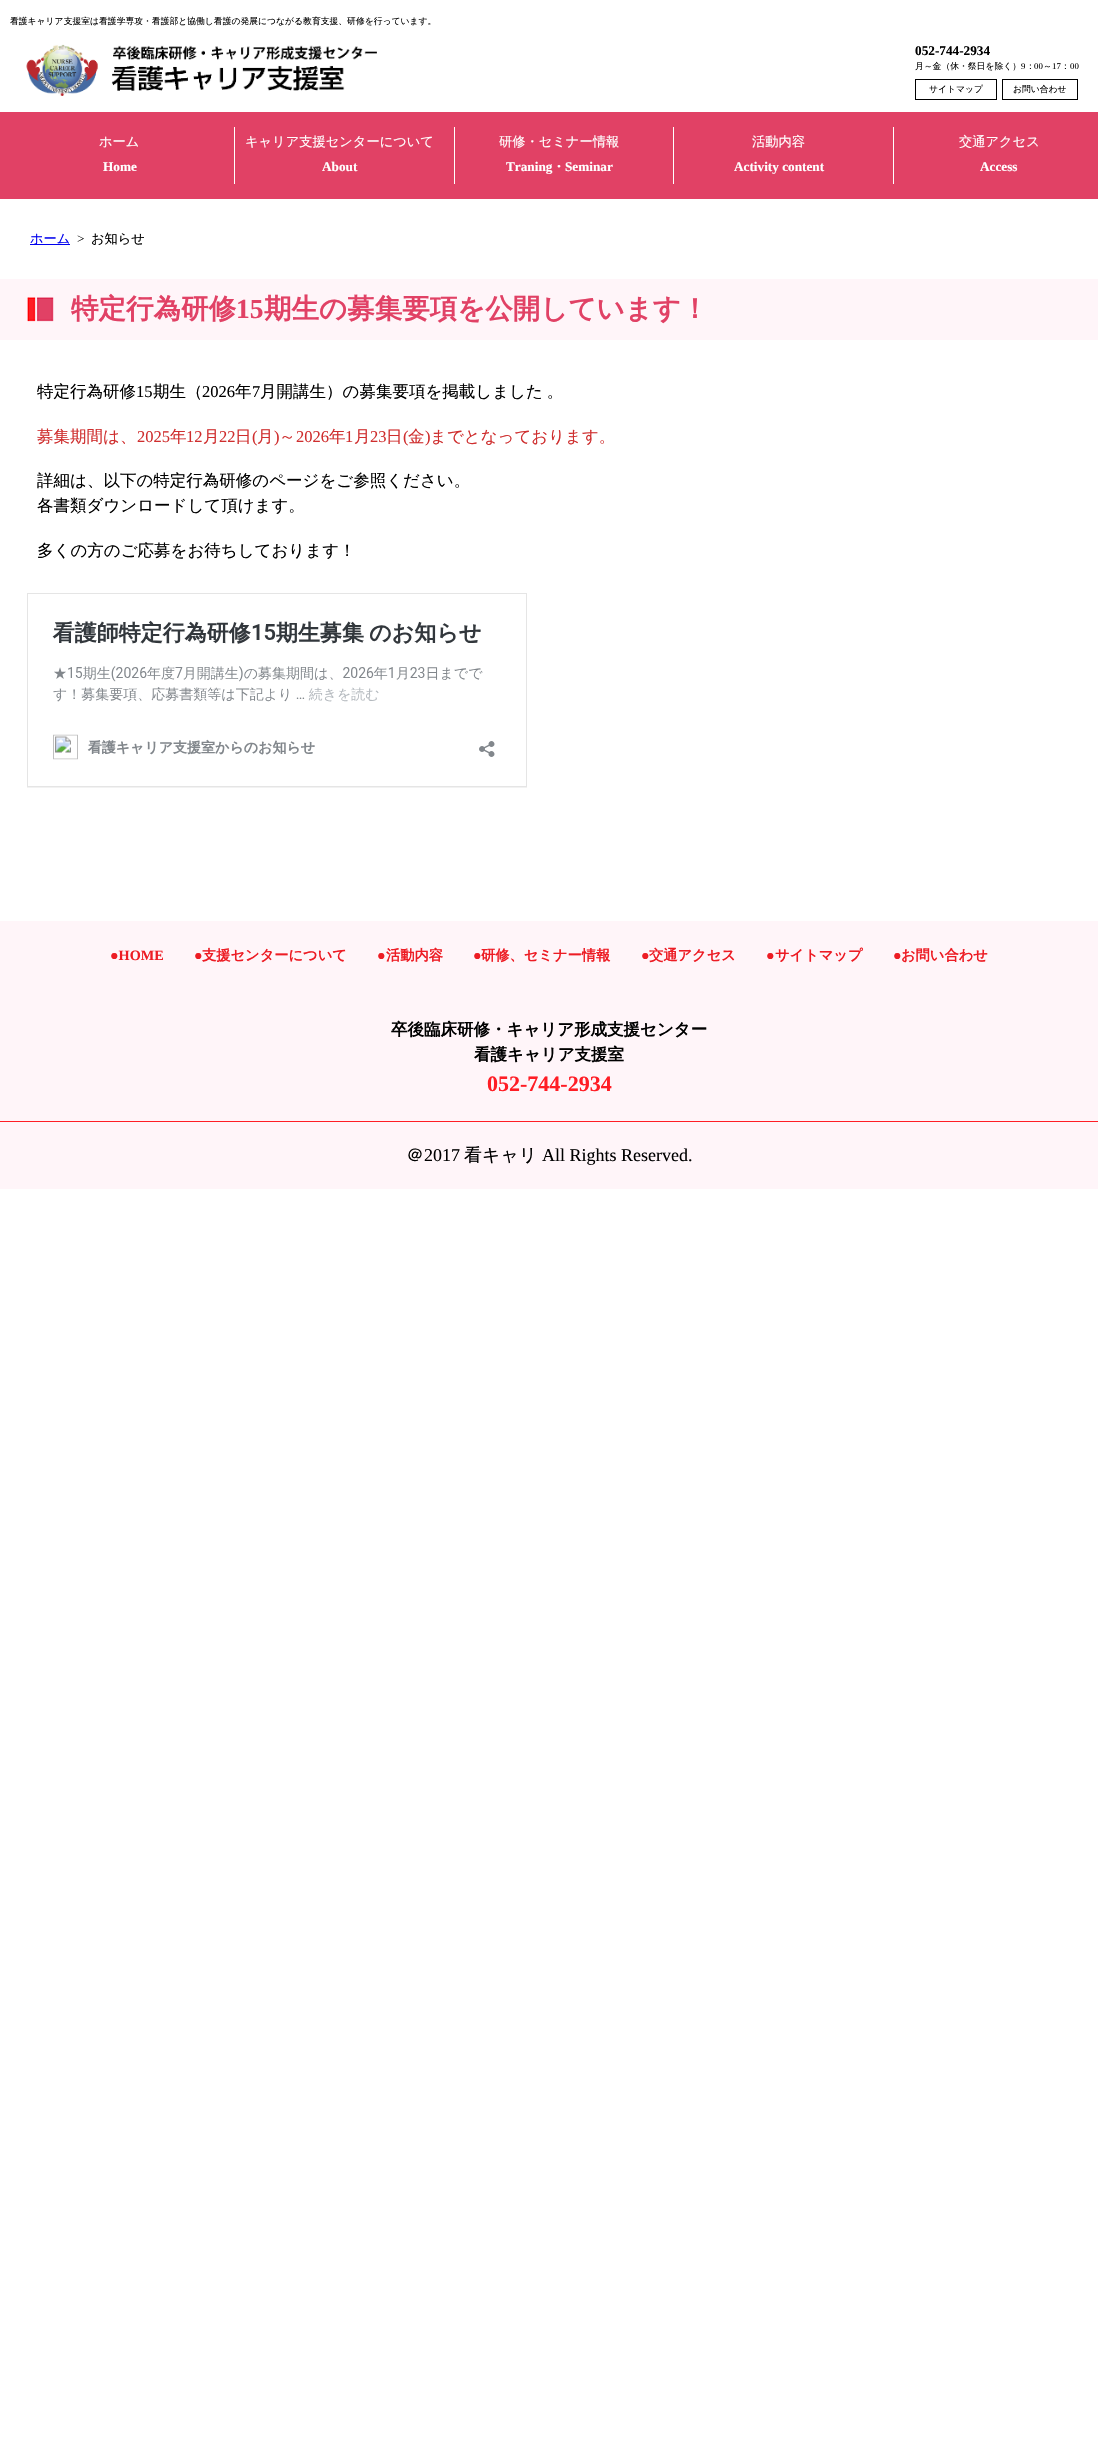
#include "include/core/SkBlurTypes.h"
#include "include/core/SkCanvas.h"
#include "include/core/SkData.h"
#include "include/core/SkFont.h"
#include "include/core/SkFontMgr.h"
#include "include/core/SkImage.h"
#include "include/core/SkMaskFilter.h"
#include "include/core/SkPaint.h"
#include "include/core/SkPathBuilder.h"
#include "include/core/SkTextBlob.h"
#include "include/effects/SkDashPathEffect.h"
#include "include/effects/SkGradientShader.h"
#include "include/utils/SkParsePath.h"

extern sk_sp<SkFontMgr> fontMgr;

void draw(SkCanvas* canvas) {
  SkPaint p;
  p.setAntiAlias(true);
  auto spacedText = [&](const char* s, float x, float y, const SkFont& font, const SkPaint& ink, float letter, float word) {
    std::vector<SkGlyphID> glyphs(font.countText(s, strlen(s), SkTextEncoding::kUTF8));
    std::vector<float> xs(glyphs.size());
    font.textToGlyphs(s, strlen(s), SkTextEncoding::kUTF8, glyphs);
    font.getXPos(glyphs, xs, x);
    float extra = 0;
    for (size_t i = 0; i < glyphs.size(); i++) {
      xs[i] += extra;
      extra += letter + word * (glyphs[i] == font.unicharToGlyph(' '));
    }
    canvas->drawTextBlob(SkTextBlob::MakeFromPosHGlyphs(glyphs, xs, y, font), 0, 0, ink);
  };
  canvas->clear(SK_ColorWHITE);
  canvas->drawImageRect(SkImages::DeferredFromEncodedData(SkData::MakeFromFileName("images/1.png")), SkRect::MakeLTRB(26, 44, 377, 96), SkSamplingOptions());
  p.setStyle(SkPaint::kStroke_Style);
  p.setStrokeWidth(1);
  p.setColor(SK_ColorBLACK);
  canvas->drawRect(SkRect::MakeLTRB(915.5f, 79.5f, 996.5f, 99.5f), p);
  canvas->drawRect(SkRect::MakeLTRB(1002.5f, 79.5f, 1077.5f, 99.5f), p);
  p.setStyle(SkPaint::kFill_Style);
  p.setColor(SkColorSetRGB(225, 65, 101));
  canvas->drawRect(SkRect::MakeLTRB(0, 112, 1098, 199), p);
  p.setColor(SK_ColorWHITE);
  canvas->drawRect(SkRect::MakeLTRB(234, 127, 235, 184), p);
  canvas->drawRect(SkRect::MakeLTRB(454, 127, 455, 184), p);
  canvas->drawRect(SkRect::MakeLTRB(673, 127, 674, 184), p);
  canvas->drawRect(SkRect::MakeLTRB(893, 127, 894, 184), p);
  p.setColor(SkColorSetRGB(0, 0, 238));
  canvas->drawRect(SkRect::MakeLTRB(30, 244, 70, 245), p);
  p.setColor(SkColorSetRGB(255, 245, 249));
  canvas->drawRect(SkRect::MakeLTRB(0, 279, 1098, 340), p);
  canvas->drawImageRect(SkImages::DeferredFromEncodedData(SkData::MakeFromFileName("images/2.png")), SkRect::MakeLTRB(27, 297, 54, 322), SkSamplingOptions());
  canvas->drawImageRect(SkImages::DeferredFromEncodedData(SkData::MakeFromFileName("images/3.png")), SkRect::MakeLTRB(27, 593, 527, 788), SkSamplingOptions());
  canvas->drawRect(SkRect::MakeLTRB(0, 921, 1098, 1189), p);
  p.setColor(SkColorSetRGB(255, 29, 37));
  canvas->drawRect(SkRect::MakeLTRB(0, 1121, 1098, 1122), p);
  SkFont font1(fontMgr->matchFamilyStyle("WenQuanYi Zen Hei", SkFontStyle(500, SkFontStyle::kNormal_Width, SkFontStyle::kUpright_Slant)), 8.8f);
  font1.setSubpixel(true);
  p.setColor(SK_ColorBLACK);
  canvas->drawString("看護キャリア支援室は看護学専攻・看護部と協働し看護の発展につながる教育支援、研修を行っています。", 10, 24, font1, p);
  SkFont font2(fontMgr->matchFamilyStyle("Liberation Serif", SkFontStyle::Bold()), 13.25f);
  font2.setSubpixel(true);
  canvas->drawString("052-744-2934", 915, 55, font2, p);
  canvas->drawString("月～金（休・祭日を除く）", 915, 69, font1, p);
  SkFont font3(fontMgr->matchFamilyStyle("Liberation Serif", SkFontStyle::Normal()), 8.8f);
  font3.setSubpixel(true);
  canvas->drawString("9", 1021, 69, font3, p);
  canvas->drawString("：", 1026, 69, font1, p);
  canvas->drawString("00", 1034, 69, font3, p);
  canvas->drawString("～", 1043, 69, font1, p);
  canvas->drawString("17", 1052, 69, font3, p);
  canvas->drawString("：", 1061, 69, font1, p);
  canvas->drawString("00", 1070, 69, font3, p);
  canvas->drawString("サイトマップ", 929, 92, font1, p);
  canvas->drawString("お問い合わせ", 1013, 92, font1, p);
  SkFont font4(fontMgr->matchFamilyStyle("WenQuanYi Zen Hei", SkFontStyle(500, SkFontStyle::kNormal_Width, SkFontStyle::kUpright_Slant)), 13.25f);
  font4.setSubpixel(true);
  p.setColor(SK_ColorWHITE);
  canvas->drawString("ホーム", 99, 146, font4, p);
  canvas->drawString("Home", 103, 171, font2, p);
  canvas->drawString("キャリア支援センターについて", 245, 146, font4, p);
  canvas->drawString("About", 322, 171, font2, p);
  canvas->drawString("研修・セミナー情報", 499, 146, font4, p);
  canvas->drawString("Traning", 506, 171, font2, p);
  SkFont font5(fontMgr->matchFamilyStyle("WenQuanYi Zen Hei", SkFontStyle::Bold()), 13.25f);
  font5.setSubpixel(true);
  canvas->drawString("・", 552, 171, font5, p);
  canvas->drawString("Seminar", 565, 171, font2, p);
  canvas->drawString("活動内容", 752, 146, font4, p);
  canvas->drawString("Activity content", 734, 171, font2, p);
  canvas->drawString("交通アクセス", 959, 146, font4, p);
  canvas->drawString("Access", 980, 171, font2, p);
  p.setColor(SkColorSetRGB(0, 0, 238));
  canvas->drawString("ホーム", 30, 243, font4, p);
  SkFont font6(fontMgr->matchFamilyStyle("Liberation Serif", SkFontStyle::Normal()), 13.25f);
  font6.setSubpixel(true);
  p.setColor(SK_ColorBLACK);
  canvas->drawString(">", 77, 243, font6, p);
  canvas->drawString("お知らせ", 91, 243, font4, p);
  SkFont font7(fontMgr->matchFamilyStyle("WenQuanYi Zen Hei", SkFontStyle::Bold()), 27.5f);
  font7.setSubpixel(true);
  p.setColor(SkColorSetRGB(225, 65, 101));
  canvas->drawString("特定行為研修", 71, 318, font7, p);
  SkFont font8(fontMgr->matchFamilyStyle("Liberation Serif", SkFontStyle::Bold()), 27.5f);
  font8.setSubpixel(true);
  canvas->drawString("15", 236, 318, font8, p);
  canvas->drawString("期生の募集要項を公開しています！", 264, 318, font7, p);
  SkFont font9(fontMgr->matchFamilyStyle("WenQuanYi Zen Hei", SkFontStyle(500, SkFontStyle::kNormal_Width, SkFontStyle::kUpright_Slant)), 16.5f);
  font9.setSubpixel(true);
  p.setColor(SK_ColorBLACK);
  canvas->drawString("特定行為研修", 37, 397, font9, p);
  SkFont font10(fontMgr->matchFamilyStyle("Liberation Serif", SkFontStyle::Normal()), 16.5f);
  font10.setSubpixel(true);
  canvas->drawString("15", 136, 397, font10, p);
  canvas->drawString("期生（", 153, 397, font9, p);
  canvas->drawString("2026", 202, 397, font10, p);
  canvas->drawString("年", 235, 397, font9, p);
  canvas->drawString("7", 252, 397, font10, p);
  spacedText("月開講生）の募集要項を掲載しました 。", 260, 397, font9, p, 0, -1);
  p.setColor(SkColorSetRGB(207, 46, 46));
  canvas->drawString("募集期間は、", 37, 442, font9, p);
  canvas->drawString("2025", 137, 442, font10, p);
  canvas->drawString("年", 170, 442, font9, p);
  canvas->drawString("12", 186, 442, font10, p);
  canvas->drawString("月", 203, 442, font9, p);
  canvas->drawString("22", 219, 442, font10, p);
  canvas->drawString("日", 235, 442, font9, p);
  canvas->drawString("(", 252, 442, font10, p);
  canvas->drawString("月", 257, 442, font9, p);
  canvas->drawString(")", 274, 442, font10, p);
  canvas->drawString("～", 279, 442, font9, p);
  canvas->drawString("2026", 296, 442, font10, p);
  canvas->drawString("年", 329, 442, font9, p);
  canvas->drawString("1", 345, 442, font10, p);
  canvas->drawString("月", 354, 442, font9, p);
  canvas->drawString("23", 370, 442, font10, p);
  canvas->drawString("日", 386, 442, font9, p);
  canvas->drawString("(", 403, 442, font10, p);
  canvas->drawString("金", 408, 442, font9, p);
  canvas->drawString(")", 425, 442, font10, p);
  canvas->drawString("までとなっております。", 430, 442, font9, p);
  p.setColor(SK_ColorBLACK);
  canvas->drawString("詳細は、以下の特定行為研修のページをご参照ください。", 37, 486, font9, p);
  canvas->drawString("各書類ダウンロードして頂けます。", 37, 511, font9, p);
  canvas->drawString("多くの方のご応募をお待ちしております！", 37, 556, font9, p);
  SkFont font11(fontMgr->matchFamilyStyle("Liberation Serif", SkFontStyle::Bold()), 14.25f);
  font11.setSubpixel(true);
  p.setColor(SkColorSetRGB(237, 28, 36));
  canvas->drawString("●HOME", 110, 960, font11, p);
  canvas->drawString("●", 194, 960, font11, p);
  SkFont font12(fontMgr->matchFamilyStyle("WenQuanYi Zen Hei", SkFontStyle::Bold()), 14.25f);
  font12.setSubpixel(true);
  canvas->drawString("支援センターについて", 202, 960, font12, p);
  canvas->drawString("●", 377, 960, font11, p);
  canvas->drawString("活動内容", 386, 960, font12, p);
  canvas->drawString("●", 473, 960, font11, p);
  canvas->drawString("研修、セミナー情報", 481, 960, font12, p);
  canvas->drawString("●", 641, 960, font11, p);
  canvas->drawString("交通アクセス", 649, 960, font12, p);
  canvas->drawString("●", 766, 960, font11, p);
  canvas->drawString("サイトマップ", 775, 960, font12, p);
  canvas->drawString("●", 893, 960, font11, p);
  canvas->drawString("お問い合わせ", 901, 960, font12, p);
  SkFont font13(fontMgr->matchFamilyStyle("WenQuanYi Zen Hei", SkFontStyle::Bold()), 16.5f);
  font13.setSubpixel(true);
  p.setColor(SK_ColorBLACK);
  canvas->drawString("卒後臨床研修・キャリア形成支援センター", 391, 1035, font13, p);
  canvas->drawString("看護キャリア支援室", 474, 1060, font13, p);
  SkFont font14(fontMgr->matchFamilyStyle("Liberation Serif", SkFontStyle::Bold()), 22);
  font14.setSubpixel(true);
  p.setColor(SkColorSetRGB(255, 29, 37));
  canvas->drawString("052-744-2934", 487, 1091, font14, p);
  SkFont font15(fontMgr->matchFamilyStyle("WenQuanYi Zen Hei", SkFontStyle(500, SkFontStyle::kNormal_Width, SkFontStyle::kUpright_Slant)), 18);
  font15.setSubpixel(true);
  p.setColor(SK_ColorBLACK);
  canvas->drawString("＠", 406, 1161, font15, p);
  SkFont font16(fontMgr->matchFamilyStyle("Liberation Serif", SkFontStyle::Normal()), 18);
  font16.setSubpixel(true);
  canvas->drawString("2017", 424, 1161, font16, p);
  canvas->drawString("看キャリ", 464, 1161, font15, p);
  canvas->drawString("All Rights Reserved.", 542, 1161, font16, p);
}
